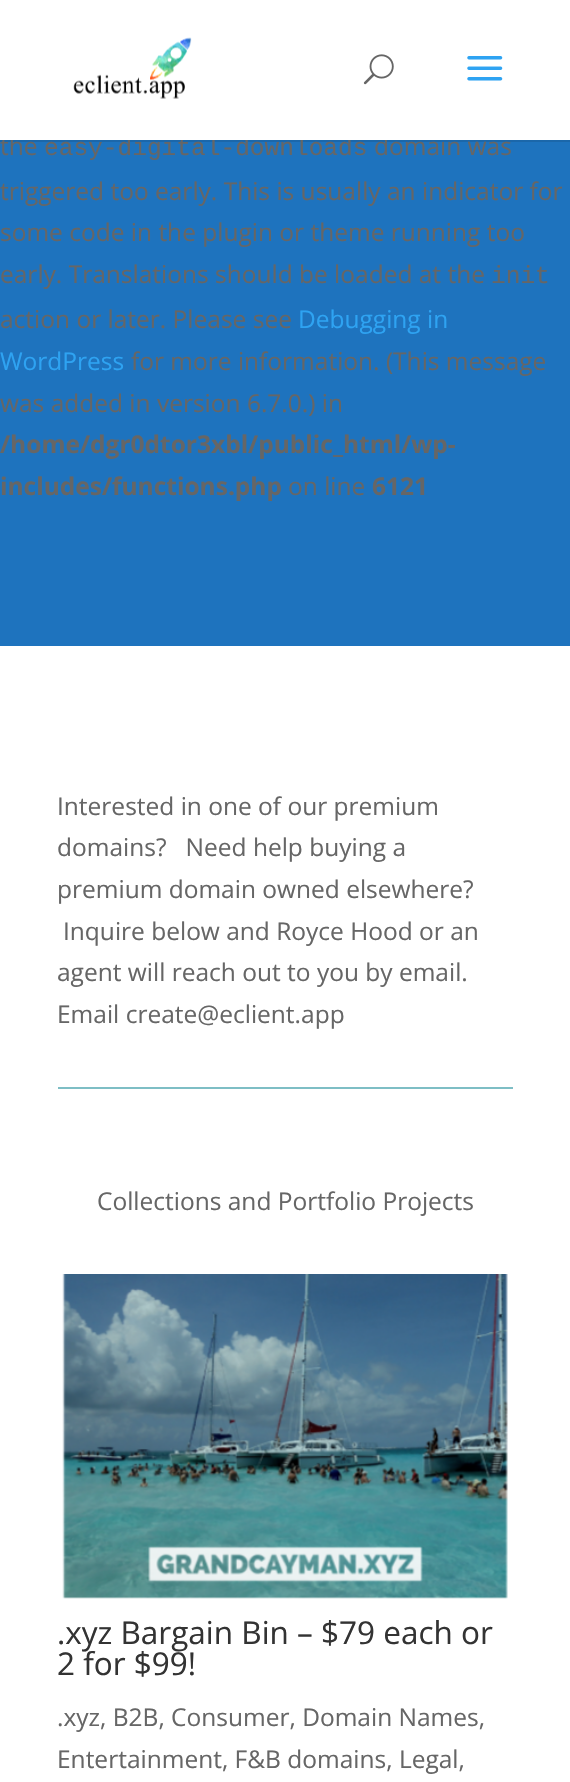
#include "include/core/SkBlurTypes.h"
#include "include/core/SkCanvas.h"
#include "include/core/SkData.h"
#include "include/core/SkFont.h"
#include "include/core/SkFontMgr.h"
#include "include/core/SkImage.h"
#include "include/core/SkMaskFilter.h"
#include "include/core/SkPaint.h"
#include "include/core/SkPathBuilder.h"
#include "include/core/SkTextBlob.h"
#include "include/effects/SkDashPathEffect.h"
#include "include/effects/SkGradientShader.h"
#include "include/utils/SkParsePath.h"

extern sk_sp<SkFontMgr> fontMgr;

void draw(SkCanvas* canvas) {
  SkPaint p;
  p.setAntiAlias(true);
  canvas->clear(SkColorSetRGB(30, 115, 190));
  p.setColor(SkColorSetARGB(26, 0, 0, 0));
  canvas->drawPath(SkPathBuilder().moveTo(0, 140).lineTo(0, 142).lineTo(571, 142).lineTo(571, 2).lineTo(570, 2).lineTo(570, 140).close().detach(), p);
  p.setColor(SK_ColorWHITE);
  canvas->drawRect(SkRect::MakeLTRB(0, 646, 570, 1782), p);
  p.setColor(SkColorSetRGB(126, 190, 197));
  canvas->drawRect(SkRect::MakeLTRB(58, 1087, 513, 1089), p);
  canvas->drawImageRect(SkImages::DeferredFromEncodedData(SkData::MakeFromFileName("images/4.png")), SkRect::MakeLTRB(62, 1274, 508, 1599), SkSamplingOptions());
  SkFont font1(fontMgr->matchFamilyStyle("Open Sans", SkFontStyle::Normal()), 24.5f);
  font1.setSubpixel(true);
  p.setColor(SkColorSetRGB(102, 102, 102));
  canvas->drawString("the", 0, 155, font1, p);
  SkFont font2(fontMgr->matchFamilyStyle("Liberation Mono", SkFontStyle::Normal()), 24.5f);
  font2.setSubpixel(true);
  canvas->drawString("easy-digital-downloads", 44, 155, font2, p);
  canvas->drawString("domain was", 374, 155, font1, p);
  canvas->drawString("triggered too early. This is usually an indicator for", 0, 200, font1, p);
  canvas->drawString("some code in the plugin or theme running too", 0, 241, font1, p);
  canvas->drawString("early. Translations should be loaded at the", 0, 283, font1, p);
  canvas->drawString("init", 491, 283, font2, p);
  canvas->drawString("action or later. Please see", 0, 328, font1, p);
  p.setColor(SkColorSetRGB(46, 163, 242));
  canvas->drawString("Debugging in", 298, 328, font1, p);
  canvas->drawString("WordPress", 0, 370, font1, p);
  p.setColor(SkColorSetRGB(102, 102, 102));
  canvas->drawString("for more information. (This message", 131, 370, font1, p);
  canvas->drawString("was added in version 6.7.0.) in", 0, 412, font1, p);
  SkFont font3(fontMgr->matchFamilyStyle("Open Sans", SkFontStyle::Bold()), 24.5f);
  font3.setSubpixel(true);
  canvas->drawString("/home/dgr0dtor3xbl/public_html/wp-", 0, 453, font3, p);
  canvas->drawString("includes/functions.php", 0, 495, font3, p);
  canvas->drawString("on line", 288, 495, font1, p);
  canvas->drawString("6121", 372, 495, font3, p);
  p.setColor(SK_ColorWHITE);
  canvas->drawRect(SkRect::MakeLTRB(0, 0, 570, 140), p);
  canvas->drawImageRect(SkImages::DeferredFromEncodedData(SkData::MakeFromFileName("images/1.png")), SkRect::MakeLTRB(73, 37, 192, 99), SkSamplingOptions());
  canvas->drawImageRect(SkImages::DeferredFromEncodedData(SkData::MakeFromFileName("images/2.png")), SkRect::MakeLTRB(363, 54, 394, 85), SkSamplingOptions());
  canvas->drawImageRect(SkImages::DeferredFromEncodedData(SkData::MakeFromFileName("images/3.png")), SkRect::MakeLTRB(467, 56, 503, 81), SkSamplingOptions());
  p.setColor(SkColorSetRGB(102, 102, 102));
  canvas->drawString("Interested in one of our premium", 57, 815, font1, p);
  canvas->drawString("domains?   Need help buying a", 57, 856, font1, p);
  canvas->drawString("premium domain owned elsewhere?", 57, 898, font1, p);
  canvas->drawString("Inquire below and Royce Hood or an", 63, 940, font1, p);
  canvas->drawString("agent will reach out to you by email.", 57, 981, font1, p);
  canvas->drawString("Email create@eclient.app", 57, 1023, font1, p);
  canvas->drawString("Collections and Portfolio Projects", 97, 1210, font1, p);
  SkFont font4(fontMgr->matchFamilyStyle("Open Sans", SkFontStyle::Normal()), 31.5f);
  font4.setSubpixel(true);
  p.setColor(SkColorSetRGB(51, 51, 51));
  canvas->drawString(".xyz Bargain Bin – $79 each or", 57, 1644, font4, p);
  canvas->drawString("2 for $99!", 57, 1675, font4, p);
  p.setColor(SkColorSetRGB(102, 102, 102));
  canvas->drawString(".xyz, B2B, Consumer, Domain Names,", 57, 1726, font1, p);
  canvas->drawString("Entertainment, F&B domains, Legal,", 57, 1768, font1, p);
}
